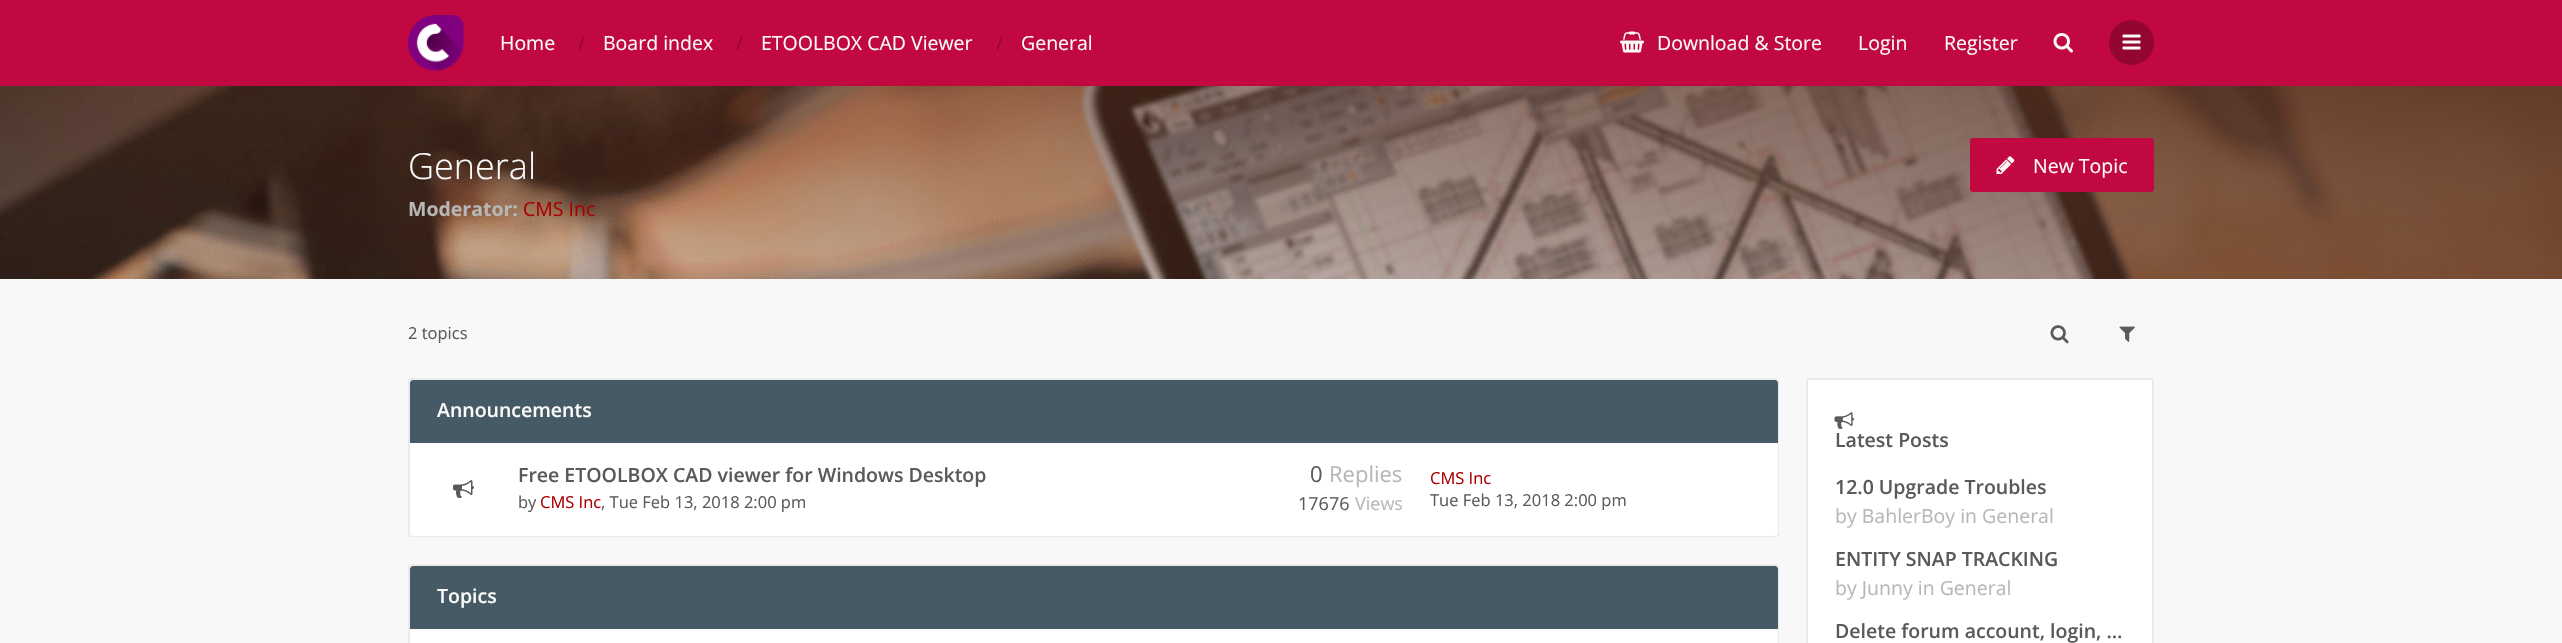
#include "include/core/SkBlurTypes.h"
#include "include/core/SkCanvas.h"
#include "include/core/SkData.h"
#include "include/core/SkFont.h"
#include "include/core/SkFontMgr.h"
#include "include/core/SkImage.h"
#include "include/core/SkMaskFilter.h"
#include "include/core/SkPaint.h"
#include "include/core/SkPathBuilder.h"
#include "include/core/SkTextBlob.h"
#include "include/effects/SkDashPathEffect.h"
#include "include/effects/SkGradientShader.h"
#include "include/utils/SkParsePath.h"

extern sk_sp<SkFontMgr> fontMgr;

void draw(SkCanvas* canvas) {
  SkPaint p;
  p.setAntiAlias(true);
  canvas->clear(SkColorSetRGB(248, 248, 248));
  p.setColor(SkColorSetRGB(193, 8, 65));
  canvas->drawRect(SkRect::MakeLTRB(0, 0, 2562, 86), p);
  canvas->drawImageRect(SkImages::DeferredFromEncodedData(SkData::MakeFromFileName("images/1.png")), SkRect::MakeLTRB(408, 15, 464, 71), SkSamplingOptions());
  canvas->drawImageRect(SkImages::DeferredFromEncodedData(SkData::MakeFromFileName("images/2.png")), SkRect::MakeLTRB(1620, 31, 1644, 53), SkSamplingOptions());
  canvas->drawImageRect(SkImages::DeferredFromEncodedData(SkData::MakeFromFileName("images/3.png")), SkRect::MakeLTRB(2053, 33, 2073, 53), SkSamplingOptions());
  p.setColor(SkColorSetRGB(147, 6, 49));
  canvas->drawCircle(2131.5f, 42.5f, 22.5f, p);
  canvas->drawImageRect(SkImages::DeferredFromEncodedData(SkData::MakeFromFileName("images/4.png")), SkRect::MakeLTRB(2122, 34, 2141, 50), SkSamplingOptions());
  canvas->drawImageRect(SkImages::DeferredFromEncodedData(SkData::MakeFromFileName("images/5.png")), SkRect::MakeLTRB(0, 86, 2562, 279), SkSamplingOptions());
  p.setColor(SkColorSetRGB(193, 8, 65));
  canvas->drawRoundRect(SkRect::MakeLTRB(1970, 138, 2154, 192), 3, 3, p);
  canvas->drawImageRect(SkImages::DeferredFromEncodedData(SkData::MakeFromFileName("images/6.png")), SkRect::MakeLTRB(1996, 156, 2015, 174), SkSamplingOptions());
  canvas->drawImageRect(SkImages::DeferredFromEncodedData(SkData::MakeFromFileName("images/7.png")), SkRect::MakeLTRB(2050, 325, 2069, 344), SkSamplingOptions());
  canvas->drawImageRect(SkImages::DeferredFromEncodedData(SkData::MakeFromFileName("images/8.png")), SkRect::MakeLTRB(2119, 326, 2135, 342), SkSamplingOptions());
  p.setStyle(SkPaint::kStroke_Style);
  p.setStrokeWidth(2);
  p.setColor(SkColorSetRGB(234, 234, 234));
  canvas->drawRoundRect(SkRect::MakeLTRB(409, 379, 1778, 536), 2, 2, p);
  p.setStyle(SkPaint::kFill_Style);
  p.setColor(SkColorSetRGB(69, 90, 100));
  canvas->drawPath(SkPathBuilder().moveTo(413, 380).lineTo(1775, 380).cubicTo(1776.5f, 380, 1778, 381.5f, 1778, 383).lineTo(1778, 443).lineTo(410, 443).lineTo(410, 383).cubicTo(410, 381.5f, 411.5f, 380, 413, 380).close().detach(), p);
  p.setColor(SK_ColorWHITE);
  canvas->drawPath(SkPathBuilder().moveTo(410, 443).lineTo(1778, 443).lineTo(1778, 533).cubicTo(1778, 534.5f, 1776.5f, 536, 1775, 536).lineTo(413, 536).cubicTo(411.5f, 536, 410, 534.5f, 410, 533).close().detach(), p);
  canvas->drawImageRect(SkImages::DeferredFromEncodedData(SkData::MakeFromFileName("images/9.png")), SkRect::MakeLTRB(453, 480, 474, 498), SkSamplingOptions());
  p.setStyle(SkPaint::kStroke_Style);
  p.setColor(SkColorSetRGB(234, 234, 234));
  canvas->drawRoundRect(SkRect::MakeLTRB(409, 565, 1778, 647), 2, 2, p);
  p.setStyle(SkPaint::kFill_Style);
  p.setColor(SkColorSetRGB(69, 90, 100));
  canvas->drawPath(SkPathBuilder().moveTo(413, 566).lineTo(1775, 566).cubicTo(1776.5f, 566, 1778, 567.5f, 1778, 569).lineTo(1778, 629).lineTo(410, 629).lineTo(410, 569).cubicTo(410, 567.5f, 411.5f, 566, 413, 566).close().detach(), p);
  p.setColor(SK_ColorWHITE);
  canvas->drawRect(SkRect::MakeLTRB(410, 629, 1778, 643), p);
  canvas->drawRoundRect(SkRect::MakeLTRB(1807, 379, 2153, 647), 2, 2, p);
  p.setStyle(SkPaint::kStroke_Style);
  p.setColor(SkColorSetRGB(234, 234, 234));
  canvas->drawRoundRect(SkRect::MakeLTRB(1807, 379, 2153, 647), 2, 2, p);
  canvas->drawImageRect(SkImages::DeferredFromEncodedData(SkData::MakeFromFileName("images/10.png")), SkRect::MakeLTRB(1834, 412, 1854, 429), SkSamplingOptions());
  SkFont font1(fontMgr->matchFamilyStyle("Open Sans", SkFontStyle::Normal()), 19.5f);
  font1.setSubpixel(true);
  p.setStyle(SkPaint::kFill_Style);
  p.setColor(SkColorSetRGB(250, 250, 250));
  canvas->drawString("Home", 500, 50, font1, p);
  p.setColor(SkColorSetRGB(147, 6, 49));
  canvas->drawString("/", 578, 50, font1, p);
  p.setColor(SkColorSetRGB(250, 250, 250));
  canvas->drawString("Board index", 603, 50, font1, p);
  p.setColor(SkColorSetRGB(147, 6, 49));
  canvas->drawString("/", 736, 50, font1, p);
  p.setColor(SkColorSetRGB(250, 250, 250));
  canvas->drawString("ETOOLBOX CAD Viewer", 761, 50, font1, p);
  p.setColor(SkColorSetRGB(147, 6, 49));
  canvas->drawString("/", 996, 50, font1, p);
  p.setColor(SkColorSetRGB(250, 250, 250));
  canvas->drawString("General", 1021, 50, font1, p);
  canvas->drawString("Download & Store", 1657, 50, font1, p);
  canvas->drawString("Login", 1858, 50, font1, p);
  canvas->drawString("Register", 1944, 50, font1, p);
  SkFont font2(fontMgr->matchFamilyStyle("Open Sans", SkFontStyle(300, SkFontStyle::kNormal_Width, SkFontStyle::kUpright_Slant)), 36);
  font2.setSubpixel(true);
  canvas->drawString("General", 408, 179, font2, p);
  SkFont font3(fontMgr->matchFamilyStyle("Open Sans", SkFontStyle::Bold()), 19.5f);
  font3.setSubpixel(true);
  p.setColor(SkColorSetRGB(183, 183, 183));
  canvas->drawString("Moderator:", 408, 216, font3, p);
  p.setColor(SkColorSetRGB(170, 0, 0));
  canvas->drawString("CMS Inc", 523, 216, font1, p);
  p.setColor(SkColorSetRGB(250, 250, 250));
  canvas->drawString("New Topic", 2033, 173, font1, p);
  SkFont font4(fontMgr->matchFamilyStyle("Open Sans", SkFontStyle::Normal()), 16.5f);
  font4.setSubpixel(true);
  p.setColor(SkColorSetRGB(90, 90, 90));
  canvas->drawString("2 topics", 408, 339, font4, p);
  SkFont font5(fontMgr->matchFamilyStyle("Open Sans", SkFontStyle(600, SkFontStyle::kNormal_Width, SkFontStyle::kUpright_Slant)), 19.5f);
  font5.setSubpixel(true);
  p.setColor(SkColorSetRGB(250, 250, 250));
  canvas->drawString("Announcements", 437, 417, font5, p);
  p.setColor(SkColorSetRGB(90, 90, 90));
  canvas->drawString("Free ETOOLBOX CAD viewer for Windows Desktop", 518, 482, font5, p);
  canvas->drawString("by", 518, 508, font4, p);
  p.setColor(SkColorSetRGB(170, 0, 0));
  canvas->drawString("CMS Inc", 540, 508, font4, p);
  p.setColor(SkColorSetRGB(90, 90, 90));
  canvas->drawString(", Tue Feb 13, 2018 2:00 pm", 601, 508, font4, p);
  SkFont font6(fontMgr->matchFamilyStyle("Open Sans", SkFontStyle::Normal()), 22);
  font6.setSubpixel(true);
  canvas->drawString("0", 1310, 482, font6, p);
  p.setColor(SkColorSetRGB(183, 183, 183));
  canvas->drawString("Replies", 1329, 482, font6, p);
  SkFont font7(fontMgr->matchFamilyStyle("Open Sans", SkFontStyle::Normal()), 18);
  font7.setSubpixel(true);
  p.setColor(SkColorSetRGB(90, 90, 90));
  canvas->drawString("17676", 1298, 510, font7, p);
  p.setColor(SkColorSetRGB(183, 183, 183));
  canvas->drawString("Views", 1355, 510, font7, p);
  p.setColor(SkColorSetRGB(170, 0, 0));
  canvas->drawString("CMS Inc", 1430, 484, font4, p);
  p.setColor(SkColorSetRGB(90, 90, 90));
  canvas->drawString("Tue Feb 13, 2018 2:00 pm", 1430, 506, font4, p);
  p.setColor(SkColorSetRGB(250, 250, 250));
  canvas->drawString("Topics", 437, 603, font5, p);
  p.setColor(SkColorSetRGB(90, 90, 90));
  canvas->drawString("Latest Posts", 1835, 447, font5, p);
  canvas->drawString("12.0 Upgrade Troubles", 1835, 494, font5, p);
  p.setColor(SkColorSetRGB(183, 183, 183));
  canvas->drawString("by BahlerBoy in General", 1835, 523, font1, p);
  p.setColor(SkColorSetRGB(90, 90, 90));
  canvas->drawString("ENTITY SNAP TRACKING", 1835, 566, font5, p);
  p.setColor(SkColorSetRGB(183, 183, 183));
  canvas->drawString("by Junny in General", 1835, 595, font1, p);
  p.setColor(SkColorSetRGB(90, 90, 90));
  canvas->drawString("Delete forum account, login, …", 1835, 638, font5, p);
}
